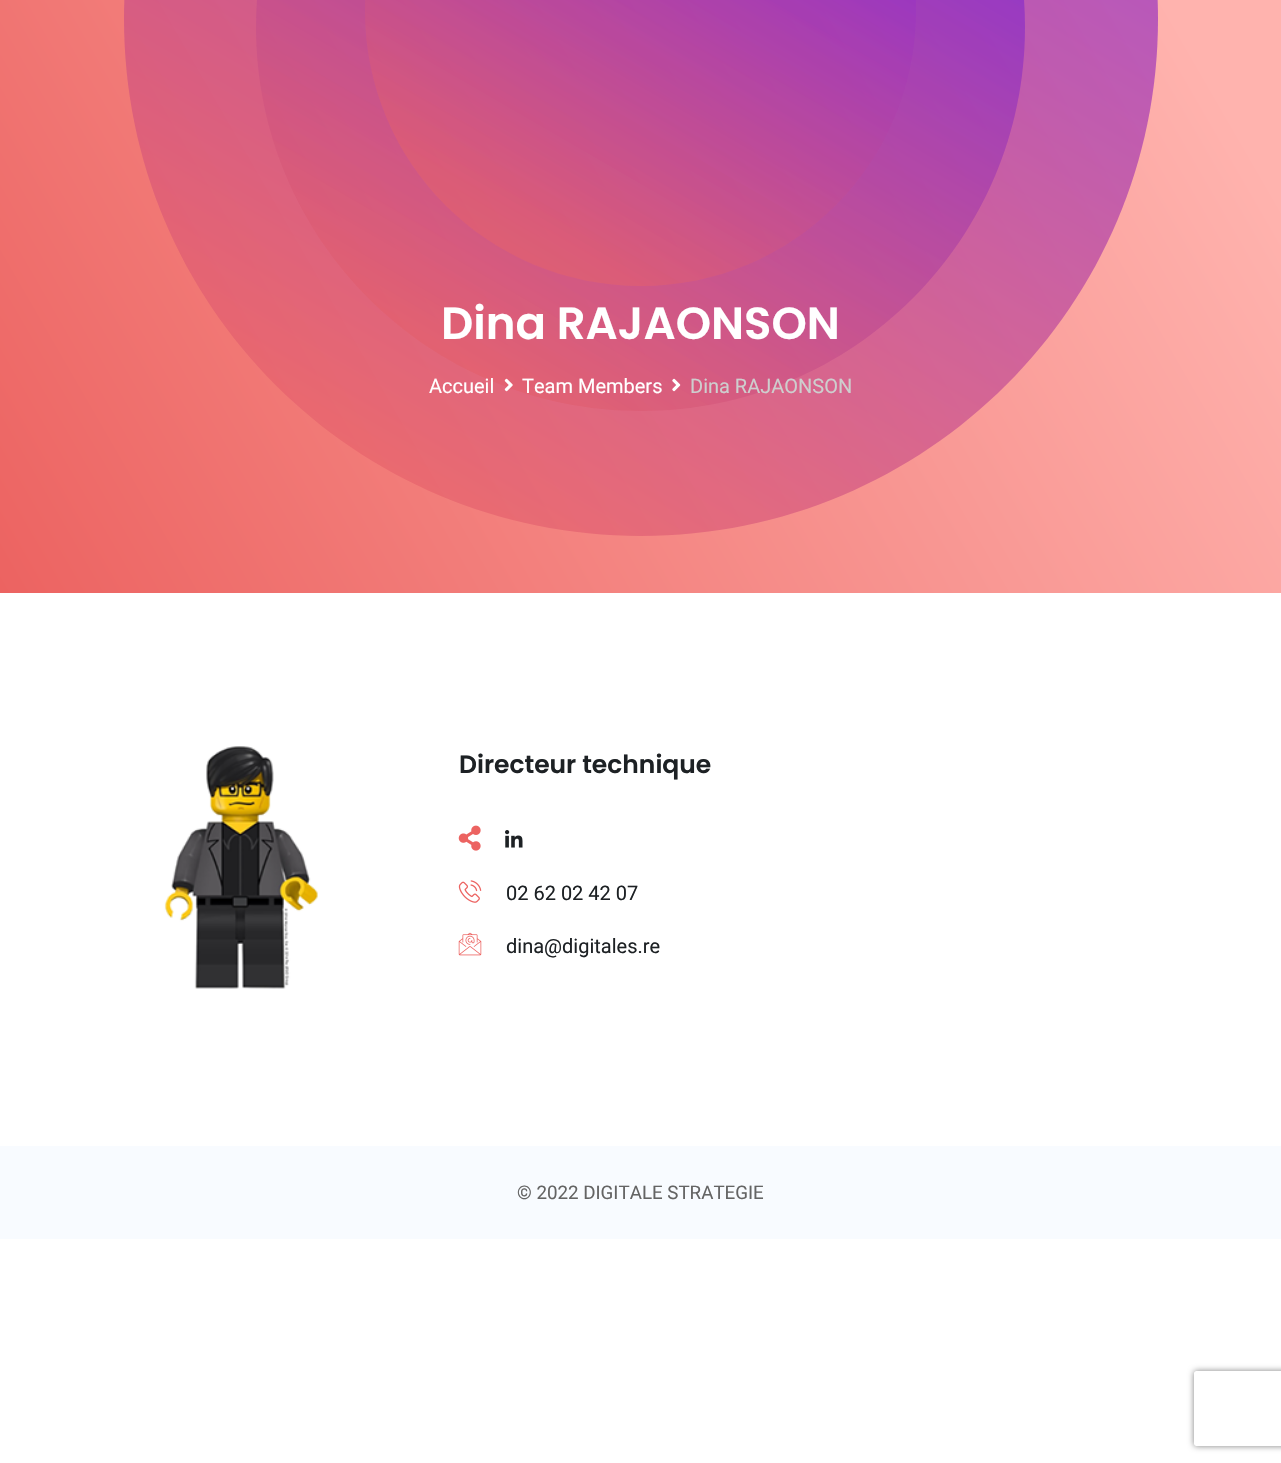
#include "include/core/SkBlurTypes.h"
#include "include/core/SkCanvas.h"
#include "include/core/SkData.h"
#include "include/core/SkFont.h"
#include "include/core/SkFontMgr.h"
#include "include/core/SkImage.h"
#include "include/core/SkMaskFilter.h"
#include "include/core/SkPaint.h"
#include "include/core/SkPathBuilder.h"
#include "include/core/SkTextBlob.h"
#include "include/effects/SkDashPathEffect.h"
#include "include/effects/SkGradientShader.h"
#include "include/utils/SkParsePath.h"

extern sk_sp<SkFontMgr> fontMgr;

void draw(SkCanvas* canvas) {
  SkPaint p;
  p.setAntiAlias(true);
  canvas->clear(SK_ColorWHITE);
  {
    const SkColor colors[] = {SkColorSetRGB(236, 99, 97), SkColorSetRGB(255, 179, 174)};
    const float stops[] = {0, 0.93f};
    const SkPoint ends[] = {{32, 648}, {1249, -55}};
    p.setShader(SkGradientShader::MakeLinear(ends, colors, stops, 2, SkTileMode::kClamp));
    p.setAlpha(255);
  }
  canvas->drawRect(SkRect::MakeLTRB(0, 0, 1281, 593), p);
  {
    const SkColor colors[] = {SkColorSetARGB(153, 236, 99, 97), SkColorSetARGB(153, 117, 14, 213)};
    const float stops[] = {0, 1};
    const SkPoint ends[] = {{124, 398}, {641, -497}};
    p.setShader(SkGradientShader::MakeLinear(ends, colors, stops, 2, SkTileMode::kClamp));
    p.setAlpha(255);
  }
  canvas->drawPath(SkPathBuilder().moveTo(641, -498).cubicTo(926, -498, 1158, -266, 1158, 19).cubicTo(1158, 305, 926, 536, 641, 536).cubicTo(355, 536, 124, 305, 124, 19).cubicTo(124, -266, 355, -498, 641, -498).close().detach(), p);
  {
    const SkColor colors[] = {SkColorSetARGB(153, 236, 99, 97), SkColorSetARGB(153, 109, 26, 223)};
    const float stops[] = {0, 1};
    const SkPoint ends[] = {{256, 308}, {641, -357}};
    p.setShader(SkGradientShader::MakeLinear(ends, colors, stops, 2, SkTileMode::kClamp));
    p.setAlpha(255);
  }
  canvas->drawPath(SkPathBuilder().moveTo(641, -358).cubicTo(853, -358, 1025, -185, 1025, 27).cubicTo(1025, 239, 853, 411, 641, 411).cubicTo(428, 411, 256, 239, 256, 27).cubicTo(256, -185, 428, -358, 641, -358).close().detach(), p);
  {
    const SkColor colors[] = {SkColorSetARGB(102, 236, 99, 97), SkColorSetARGB(102, 130, 33, 221)};
    const float stops[] = {0.13f, 1};
    const SkPoint ends[] = {{365, 212}, {641, -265}};
    p.setShader(SkGradientShader::MakeLinear(ends, colors, stops, 2, SkTileMode::kClamp));
    p.setAlpha(255);
  }
  canvas->drawPath(SkPathBuilder().moveTo(641, -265).cubicTo(793, -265, 916, -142, 916, 11).cubicTo(916, 163, 793, 286, 641, 286).cubicTo(488, 286, 365, 163, 365, 11).cubicTo(365, -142, 488, -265, 641, -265).close().detach(), p);
  canvas->drawImageRect(SkImages::DeferredFromEncodedData(SkData::MakeFromFileName("images/1.png")), SkRect::MakeLTRB(504, 378, 513, 392), SkSamplingOptions());
  canvas->drawImageRect(SkImages::DeferredFromEncodedData(SkData::MakeFromFileName("images/2.png")), SkRect::MakeLTRB(672, 378, 681, 392), SkSamplingOptions());
  canvas->drawImageRect(SkImages::DeferredFromEncodedData(SkData::MakeFromFileName("images/3.png")), SkRect::MakeLTRB(164, 746, 318, 989), SkSamplingOptions());
  canvas->drawImageRect(SkImages::DeferredFromEncodedData(SkData::MakeFromFileName("images/4.png")), SkRect::MakeLTRB(458, 825, 481, 851), SkSamplingOptions());
  canvas->drawImageRect(SkImages::DeferredFromEncodedData(SkData::MakeFromFileName("images/5.png")), SkRect::MakeLTRB(505, 830, 523, 848), SkSamplingOptions());
  canvas->drawImageRect(SkImages::DeferredFromEncodedData(SkData::MakeFromFileName("images/6.png")), SkRect::MakeLTRB(458, 880, 482, 903), SkSamplingOptions());
  canvas->drawImageRect(SkImages::DeferredFromEncodedData(SkData::MakeFromFileName("images/7.png")), SkRect::MakeLTRB(458, 932, 482, 956), SkSamplingOptions());
  p.setShader(nullptr);
  p.setColor(SkColorSetRGB(248, 251, 255));
  canvas->drawRect(SkRect::MakeLTRB(0, 1146, 1281, 1239), p);
  canvas->save();
  canvas->clipPath(SkPathBuilder(SkPathFillType::kEvenOdd).moveTo(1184, 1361).lineTo(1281, 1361).lineTo(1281, 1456).lineTo(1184, 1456).close().moveTo(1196.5f, 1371).lineTo(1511.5f, 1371).cubicTo(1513, 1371, 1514, 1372, 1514, 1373.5f).lineTo(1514, 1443.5f).cubicTo(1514, 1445, 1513, 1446, 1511.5f, 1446).lineTo(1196.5f, 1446).cubicTo(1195, 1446, 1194, 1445, 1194, 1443.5f).lineTo(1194, 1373.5f).cubicTo(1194, 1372, 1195, 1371, 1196.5f, 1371).close().detach(), true);
  p.setColor(SkColorSetRGB(128, 128, 128));
  p.setMaskFilter(SkMaskFilter::MakeBlur(kNormal_SkBlurStyle, 3));
  canvas->drawRoundRect(SkRect::MakeLTRB(1194, 1371, 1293, 1446), 2.5f, 2.5f, p);
  p.setMaskFilter(nullptr);
  canvas->restore();
  SkFont font1(fontMgr->matchFamilyStyle("Poppins", SkFontStyle(600, SkFontStyle::kNormal_Width, SkFontStyle::kUpright_Slant)), 45);
  font1.setSubpixel(true);
  p.setColor(SK_ColorWHITE);
  canvas->drawString("Dina RAJAONSON", 441, 339, font1, p);
  SkFont font2(fontMgr->matchFamilyStyle("Roboto", SkFontStyle::Normal()), 20);
  font2.setSubpixel(true);
  canvas->drawString("Accueil", 429, 393, font2, p);
  canvas->drawString("Team Members", 522, 393, font2, p);
  p.setColor(SkColorSetRGB(206, 206, 206));
  canvas->drawString("Dina RAJAONSON", 690, 393, font2, p);
  SkFont font3(fontMgr->matchFamilyStyle("Poppins", SkFontStyle(600, SkFontStyle::kNormal_Width, SkFontStyle::kUpright_Slant)), 25);
  font3.setSubpixel(true);
  p.setColor(SkColorSetRGB(29, 33, 36));
  canvas->drawString("Directeur technique", 459, 773, font3, p);
  canvas->drawString("02 62 02 42 07", 506, 900, font2, p);
  canvas->drawString("dina@digitales.re", 506, 953, font2, p);
  SkFont font4(fontMgr->matchFamilyStyle("Roboto", SkFontStyle::Normal()), 18.75f);
  font4.setSubpixel(true);
  p.setColor(SkColorSetRGB(100, 100, 100));
  canvas->drawString("© 2022 DIGITALE STRATEGIE", 517, 1199, font4, p);
}
